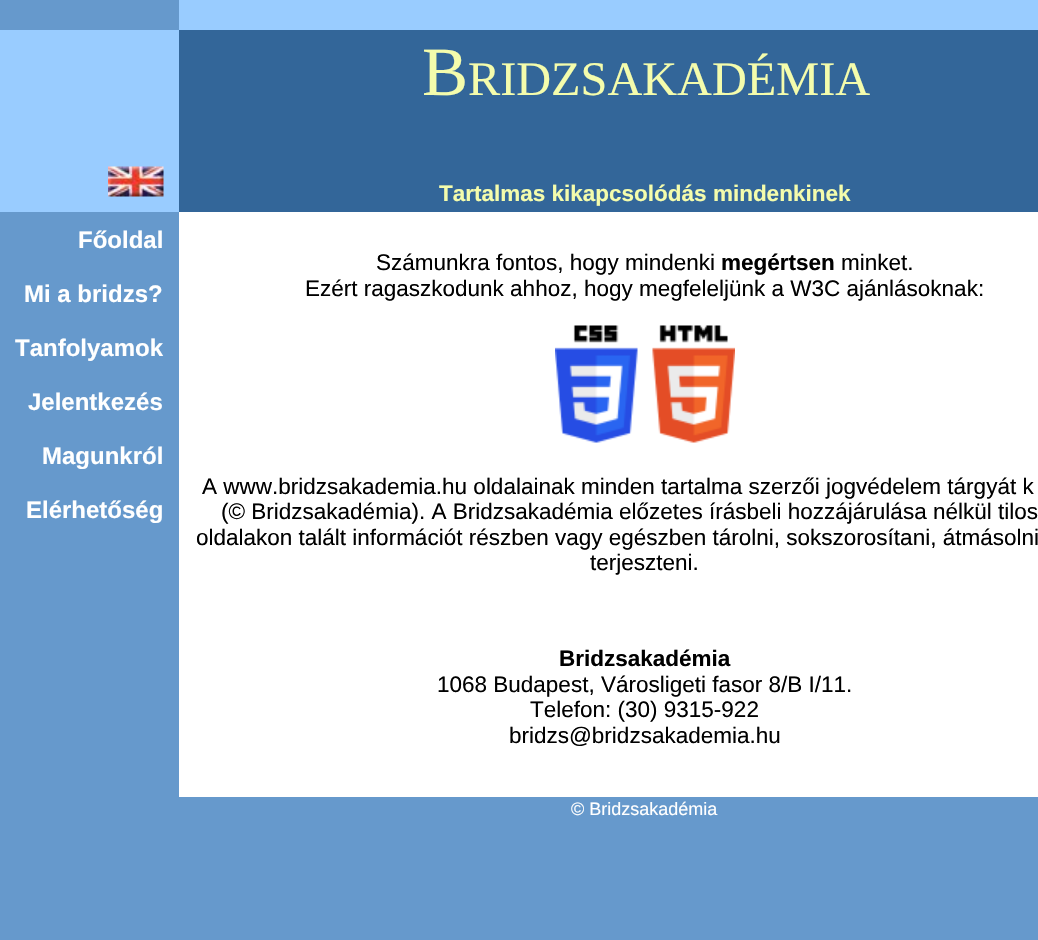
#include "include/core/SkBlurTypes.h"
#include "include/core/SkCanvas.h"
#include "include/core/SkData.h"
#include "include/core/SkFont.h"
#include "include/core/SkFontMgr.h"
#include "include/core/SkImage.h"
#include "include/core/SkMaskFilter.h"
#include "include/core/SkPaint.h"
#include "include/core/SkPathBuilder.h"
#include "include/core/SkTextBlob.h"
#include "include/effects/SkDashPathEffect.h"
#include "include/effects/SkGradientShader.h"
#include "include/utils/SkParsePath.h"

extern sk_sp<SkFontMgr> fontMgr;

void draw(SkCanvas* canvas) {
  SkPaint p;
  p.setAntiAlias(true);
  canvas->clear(SkColorSetRGB(102, 153, 204));
  p.setColor(SkColorSetRGB(153, 204, 255));
  canvas->drawRect(SkRect::MakeLTRB(179, 0, 1038, 30), p);
  canvas->drawRect(SkRect::MakeLTRB(0, 30, 179, 212), p);
  canvas->drawImageRect(SkImages::DeferredFromEncodedData(SkData::MakeFromFileName("images/1.png")), SkRect::MakeLTRB(108, 166, 164, 197), SkSamplingOptions());
  p.setColor(SkColorSetRGB(51, 102, 153));
  canvas->drawRect(SkRect::MakeLTRB(179, 30, 1038, 212), p);
  p.setColor(SK_ColorWHITE);
  canvas->drawRect(SkRect::MakeLTRB(179, 212, 1038, 797), p);
  canvas->drawImageRect(SkImages::DeferredFromEncodedData(SkData::MakeFromFileName("images/2.png")), SkRect::MakeLTRB(555, 325, 735, 443), SkSamplingOptions());
  SkFont font1(fontMgr->matchFamilyStyle("Liberation Serif", SkFontStyle::Normal()), 69);
  font1.setSubpixel(true);
  p.setColor(SkColorSetRGB(244, 252, 172));
  canvas->drawString("B", 422, 95, font1, p);
  SkFont font2(fontMgr->matchFamilyStyle("Liberation Serif", SkFontStyle::Normal()), 48.25f);
  font2.setSubpixel(true);
  canvas->drawString("RIDZSAKADÉMIA", 468, 95, font2, p);
  SkFont font3(fontMgr->matchFamilyStyle("Liberation Sans", SkFontStyle::Bold()), 22.5f);
  font3.setSubpixel(true);
  canvas->drawString("Tartalmas kikapcsolódás mindenkinek", 439, 201, font3, p);
  SkFont font4(fontMgr->matchFamilyStyle("Liberation Sans", SkFontStyle::Bold()), 24);
  font4.setSubpixel(true);
  p.setColor(SK_ColorWHITE);
  canvas->drawString("Főoldal", 78, 248, font4, p);
  canvas->drawString("Mi a bridzs?", 24, 302, font4, p);
  canvas->drawString("Tanfolyamok", 15, 356, font4, p);
  canvas->drawString("Jelentkezés", 28, 410, font4, p);
  canvas->drawString("Magunkról", 42, 464, font4, p);
  canvas->drawString("Elérhetőség", 26, 518, font4, p);
  SkFont font5(fontMgr->matchFamilyStyle("Liberation Sans", SkFontStyle::Normal()), 22.5f);
  font5.setSubpixel(true);
  p.setColor(SK_ColorBLACK);
  canvas->drawString("Számunkra fontos, hogy mindenki", 376, 270, font5, p);
  canvas->drawString("megértsen", 721, 270, font3, p);
  canvas->drawString("minket.", 841, 270, font5, p);
  canvas->drawString("Ezért ragaszkodunk ahhoz, hogy megfeleljünk a W3C ajánlásoknak:", 305, 296, font5, p);
  canvas->drawString("A www.bridzsakademia.hu oldalainak minden tartalma szerzői jogvédelem tárgyát k", 202, 494, font5, p);
  canvas->drawString("(© Bridzsakadémia). A Bridzsakadémia előzetes írásbeli hozzájárulása nélkül tilos", 221, 519, font5, p);
  canvas->drawString("oldalakon talált információt részben vagy egészben tárolni, sokszorosítani, átmásolni", 196, 545, font5, p);
  canvas->drawString("terjeszteni.", 590, 570, font5, p);
  canvas->drawString("Bridzsakadémia", 559, 666, font3, p);
  canvas->drawString("1068 Budapest, Városligeti fasor 8/B I/11.", 437, 692, font5, p);
  canvas->drawString("Telefon: (30) 9315-922", 530, 717, font5, p);
  canvas->drawString("bridzs@bridzsakademia.hu", 509, 743, font5, p);
  SkFont font6(fontMgr->matchFamilyStyle("Liberation Sans", SkFontStyle::Normal()), 18);
  font6.setSubpixel(true);
  p.setColor(SK_ColorWHITE);
  canvas->drawString("© Bridzsakadémia", 571, 815, font6, p);
}
